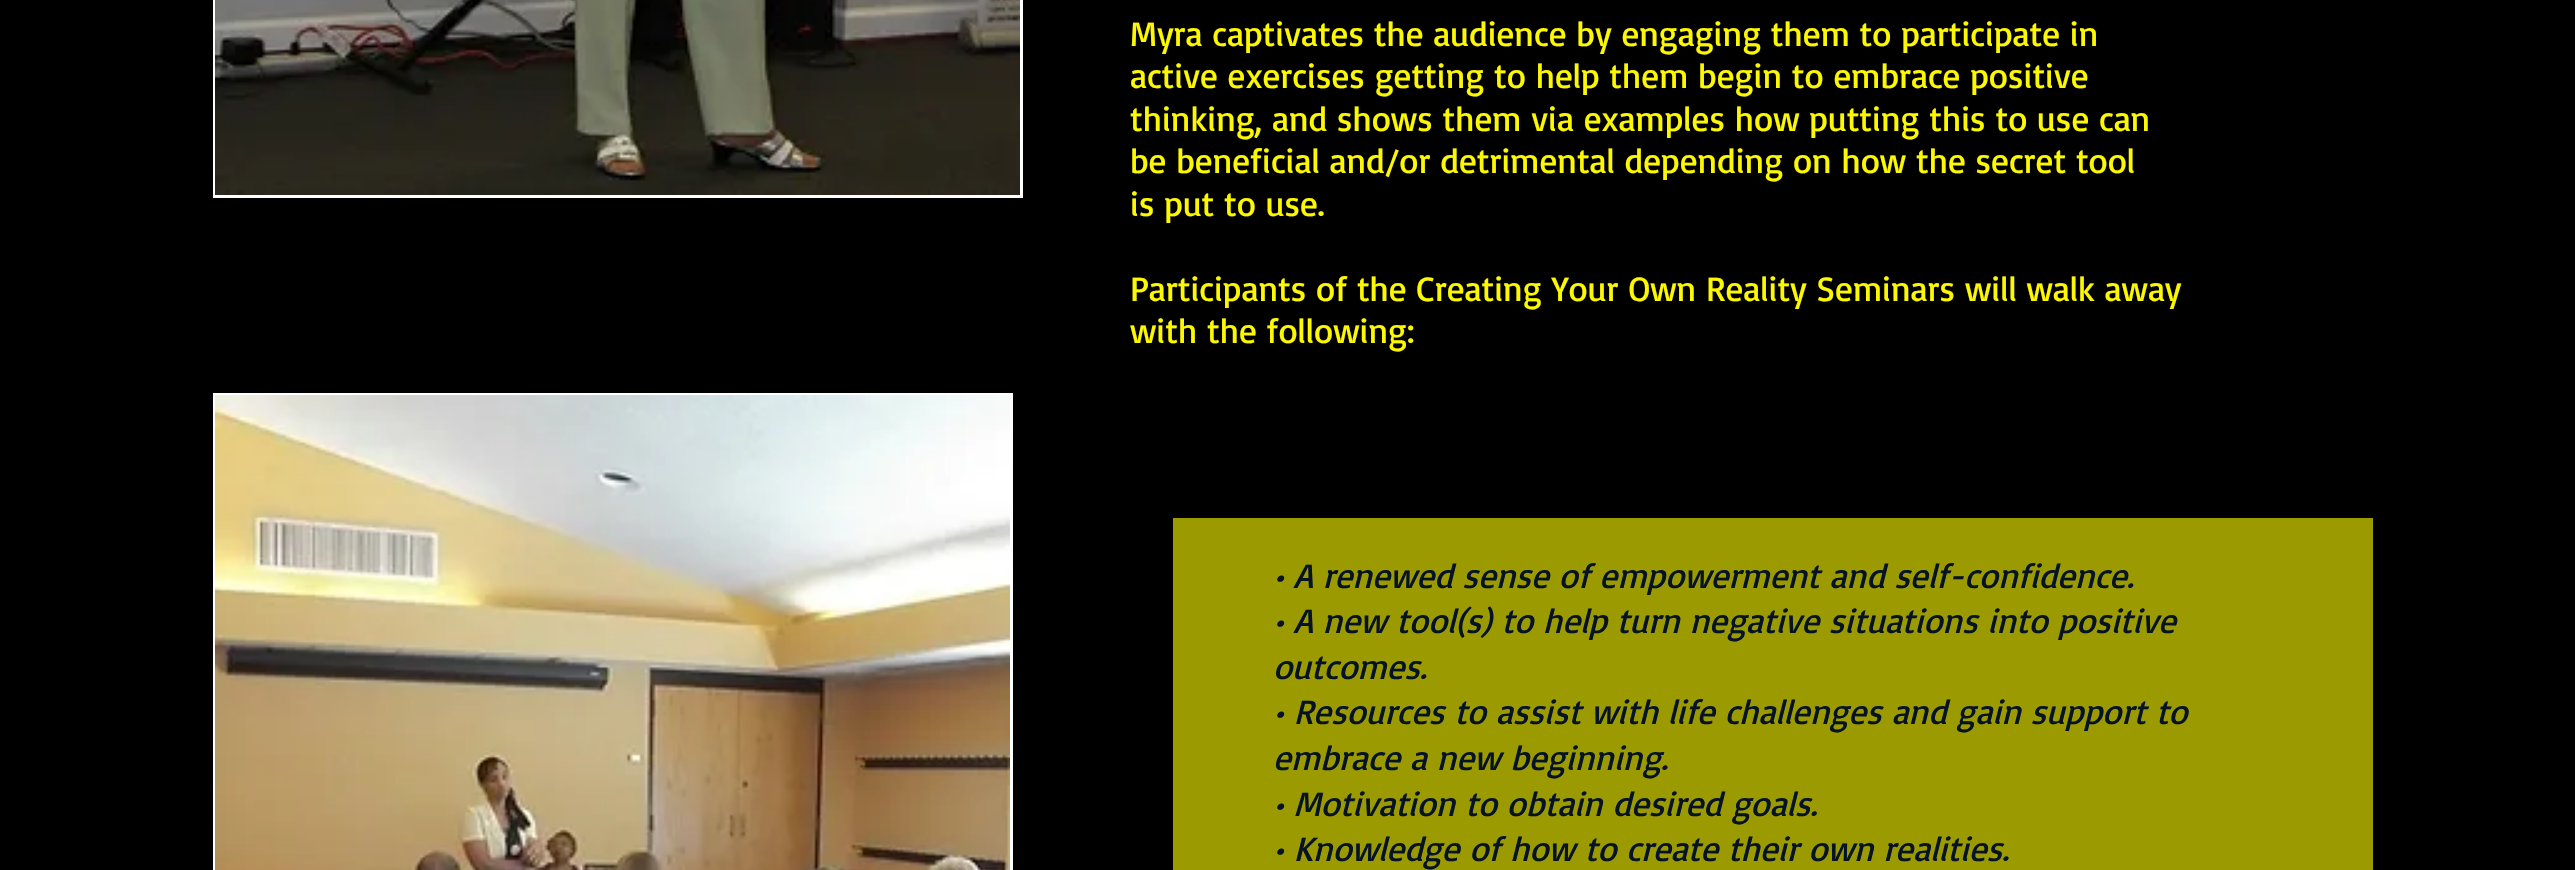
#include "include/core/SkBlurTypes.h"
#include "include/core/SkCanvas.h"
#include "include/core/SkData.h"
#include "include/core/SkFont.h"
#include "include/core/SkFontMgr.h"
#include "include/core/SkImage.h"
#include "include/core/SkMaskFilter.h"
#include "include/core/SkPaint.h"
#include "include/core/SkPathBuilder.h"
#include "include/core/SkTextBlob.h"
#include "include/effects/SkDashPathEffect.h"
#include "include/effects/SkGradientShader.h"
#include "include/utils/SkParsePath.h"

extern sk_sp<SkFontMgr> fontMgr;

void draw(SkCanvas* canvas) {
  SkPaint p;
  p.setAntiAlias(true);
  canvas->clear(SK_ColorBLACK);
  p.setColor(SK_ColorWHITE);
  canvas->drawRect(SkRect::MakeLTRB(213, 0, 1023, 198), p);
  canvas->drawImageRect(SkImages::DeferredFromEncodedData(SkData::MakeFromFileName("images/1.png")), SkRect::MakeLTRB(215, 0, 1020, 195), SkSamplingOptions());
  canvas->drawRect(SkRect::MakeLTRB(213, 393, 1013, 870), p);
  canvas->drawImageRect(SkImages::DeferredFromEncodedData(SkData::MakeFromFileName("images/2.png")), SkRect::MakeLTRB(215, 395, 1010, 870), SkSamplingOptions());
  p.setColor(SkColorSetRGB(156, 154, 1));
  canvas->drawRect(SkRect::MakeLTRB(1173, 518, 2373, 870), p);
  SkFont font1(fontMgr->matchFamilyStyle("Basic", SkFontStyle::Normal()), 35);
  font1.setSubpixel(true);
  p.setColor(SkColorSetRGB(252, 248, 2));
  canvas->drawString("Myra captivates the audience by engaging them to participate in", 1130, 46, font1, p);
  canvas->drawString("active exercises getting to help them begin to embrace positive", 1130, 88, font1, p);
  canvas->drawString("thinking, and shows them via examples how putting this to use can", 1130, 131, font1, p);
  canvas->drawString("be beneficial and/or detrimental depending on how the secret tool", 1130, 173, font1, p);
  canvas->drawString("is put to use.", 1130, 216, font1, p);
  canvas->drawString("Participants of the Creating Your Own Reality Seminars will walk away", 1130, 301, font1, p);
  canvas->drawString("with the following:", 1130, 343, font1, p);
  SkFont font2(fontMgr->matchFamilyStyle("Basic", SkFontStyle::Italic()), 35);
  font2.setSubpixel(true);
  p.setColor(SkColorSetRGB(5, 19, 36));
  canvas->drawString("• A renewed sense of empowerment and self-confidence.", 1273, 588, font2, p);
  canvas->drawString("• A new tool(s) to help turn negative situations into positive", 1273, 633, font2, p);
  canvas->drawString("outcomes.", 1273, 679, font2, p);
  canvas->drawString("• Resources to assist with life challenges and gain support to", 1273, 724, font2, p);
  canvas->drawString("embrace a new beginning.", 1273, 770, font2, p);
  canvas->drawString("• Motivation to obtain desired goals.", 1273, 816, font2, p);
  canvas->drawString("• Knowledge of how to create their own realities.", 1273, 861, font2, p);
}
